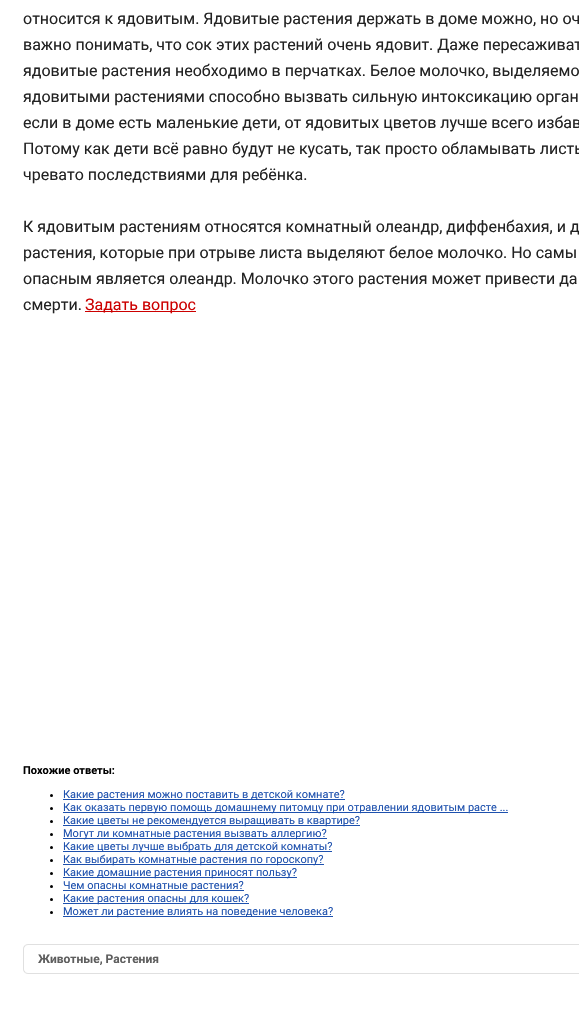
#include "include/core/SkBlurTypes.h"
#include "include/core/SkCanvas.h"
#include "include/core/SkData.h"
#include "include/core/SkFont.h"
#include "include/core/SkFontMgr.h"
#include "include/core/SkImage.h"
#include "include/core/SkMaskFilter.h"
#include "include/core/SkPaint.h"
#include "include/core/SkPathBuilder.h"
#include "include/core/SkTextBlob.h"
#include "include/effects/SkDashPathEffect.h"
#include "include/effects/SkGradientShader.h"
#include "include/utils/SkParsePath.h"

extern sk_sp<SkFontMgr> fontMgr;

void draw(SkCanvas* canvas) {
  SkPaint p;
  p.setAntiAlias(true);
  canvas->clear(SK_ColorWHITE);
  p.setColor(SkColorSetRGB(204, 0, 0));
  canvas->drawRect(SkRect::MakeLTRB(85, 311, 196, 312), p);
  p.setColor(SK_ColorBLACK);
  canvas->drawCircle(51.5f, 795.5f, 1.5f, p);
  p.setColor(SkColorSetRGB(30, 81, 174));
  canvas->drawRect(SkRect::MakeLTRB(63, 799, 345, 800), p);
  p.setColor(SK_ColorBLACK);
  canvas->drawCircle(51.5f, 808.5f, 1.5f, p);
  p.setColor(SkColorSetRGB(30, 81, 174));
  canvas->drawRect(SkRect::MakeLTRB(63, 812, 508, 813), p);
  p.setColor(SK_ColorBLACK);
  canvas->drawCircle(51.5f, 821.5f, 1.5f, p);
  p.setColor(SkColorSetRGB(30, 81, 174));
  canvas->drawRect(SkRect::MakeLTRB(63, 825, 360, 826), p);
  p.setColor(SK_ColorBLACK);
  canvas->drawCircle(51.5f, 834.5f, 1.5f, p);
  p.setColor(SkColorSetRGB(30, 81, 174));
  canvas->drawRect(SkRect::MakeLTRB(63, 838, 327, 839), p);
  p.setColor(SK_ColorBLACK);
  canvas->drawCircle(51.5f, 847.5f, 1.5f, p);
  p.setColor(SkColorSetRGB(30, 81, 174));
  canvas->drawRect(SkRect::MakeLTRB(63, 851, 332, 852), p);
  p.setColor(SK_ColorBLACK);
  canvas->drawCircle(51.5f, 860.5f, 1.5f, p);
  p.setColor(SkColorSetRGB(30, 81, 174));
  canvas->drawRect(SkRect::MakeLTRB(63, 864, 324, 865), p);
  p.setColor(SK_ColorBLACK);
  canvas->drawCircle(51.5f, 873.5f, 1.5f, p);
  p.setColor(SkColorSetRGB(30, 81, 174));
  canvas->drawRect(SkRect::MakeLTRB(63, 877, 297, 878), p);
  p.setColor(SK_ColorBLACK);
  canvas->drawCircle(51.5f, 886.5f, 1.5f, p);
  p.setColor(SkColorSetRGB(30, 81, 174));
  canvas->drawRect(SkRect::MakeLTRB(63, 890, 244, 891), p);
  p.setColor(SK_ColorBLACK);
  canvas->drawCircle(51.5f, 899.5f, 1.5f, p);
  p.setColor(SkColorSetRGB(30, 81, 174));
  canvas->drawRect(SkRect::MakeLTRB(63, 903, 249, 904), p);
  p.setColor(SK_ColorBLACK);
  canvas->drawCircle(51.5f, 912.5f, 1.5f, p);
  p.setColor(SkColorSetRGB(30, 81, 174));
  canvas->drawRect(SkRect::MakeLTRB(63, 916, 333, 917), p);
  canvas->drawImageRect(SkImages::DeferredFromEncodedData(SkData::MakeFromFileName("images/1.png")), SkRect::MakeLTRB(23, 944, 579, 974), SkSamplingOptions());
  SkFont font1(fontMgr->matchFamilyStyle("Roboto", SkFontStyle::Normal()), 16);
  font1.setSubpixel(true);
  p.setColor(SkColorSetRGB(34, 34, 34));
  canvas->drawString("относится к ядовитым. Ядовитые растения держать в доме можно, но оч", 23, 24, font1, p);
  canvas->drawString("важно понимать, что сок этих растений очень ядовит. Даже пересаживат", 23, 50, font1, p);
  canvas->drawString("ядовитые растения необходимо в перчатках. Белое молочко, выделяемо", 23, 76, font1, p);
  canvas->drawString("ядовитыми растениями способно вызвать сильную интоксикацию орган", 23, 102, font1, p);
  canvas->drawString("если в доме есть маленькие дети, от ядовитых цветов лучше всего избав", 23, 128, font1, p);
  canvas->drawString("Потому как дети всё равно будут не кусать, так просто обламывать листь", 23, 154, font1, p);
  canvas->drawString("чревато последствиями для ребёнка.", 23, 180, font1, p);
  canvas->drawString("К ядовитым растениям относятся комнатный олеандр, диффенбахия, и д", 23, 232, font1, p);
  canvas->drawString("растения, которые при отрыве листа выделяют белое молочко. Но самы", 23, 258, font1, p);
  canvas->drawString("опасным является олеандр. Молочко этого растения может привести да", 23, 284, font1, p);
  canvas->drawString("смерти.", 23, 310, font1, p);
  p.setColor(SkColorSetRGB(204, 0, 0));
  canvas->drawString("Задать вопрос", 85, 310, font1, p);
  SkFont font2(fontMgr->matchFamilyStyle("Roboto", SkFontStyle::Bold()), 11);
  font2.setSubpixel(true);
  p.setColor(SK_ColorBLACK);
  canvas->drawString("Похожие ответы:", 23, 774, font2, p);
  SkFont font3(fontMgr->matchFamilyStyle("Roboto", SkFontStyle::Normal()), 11);
  font3.setSubpixel(true);
  p.setColor(SkColorSetRGB(30, 81, 174));
  canvas->drawString("Какие растения можно поставить в детской комнате?", 63, 798, font3, p);
  canvas->drawString("Как оказать первую помощь домашнему питомцу при отравлении ядовитым расте ...", 63, 811, font3, p);
  canvas->drawString("Какие цветы не рекомендуется выращивать в квартире?", 63, 824, font3, p);
  canvas->drawString("Могут ли комнатные растения вызвать аллергию?", 63, 837, font3, p);
  canvas->drawString("Какие цветы лучше выбрать для детской комнаты?", 63, 850, font3, p);
  canvas->drawString("Как выбирать комнатные растения по гороскопу?", 63, 863, font3, p);
  canvas->drawString("Какие домашние растения приносят пользу?", 63, 876, font3, p);
  canvas->drawString("Чем опасны комнатные растения?", 63, 889, font3, p);
  canvas->drawString("Какие растения опасны для кошек?", 63, 902, font3, p);
  canvas->drawString("Может ли растение влиять на поведение человека?", 63, 915, font3, p);
  SkFont font4(fontMgr->matchFamilyStyle("Roboto", SkFontStyle::Bold()), 12);
  font4.setSubpixel(true);
  p.setColor(SkColorSetRGB(94, 94, 94));
  canvas->drawString("Животные, Растения", 38, 963, font4, p);
}
